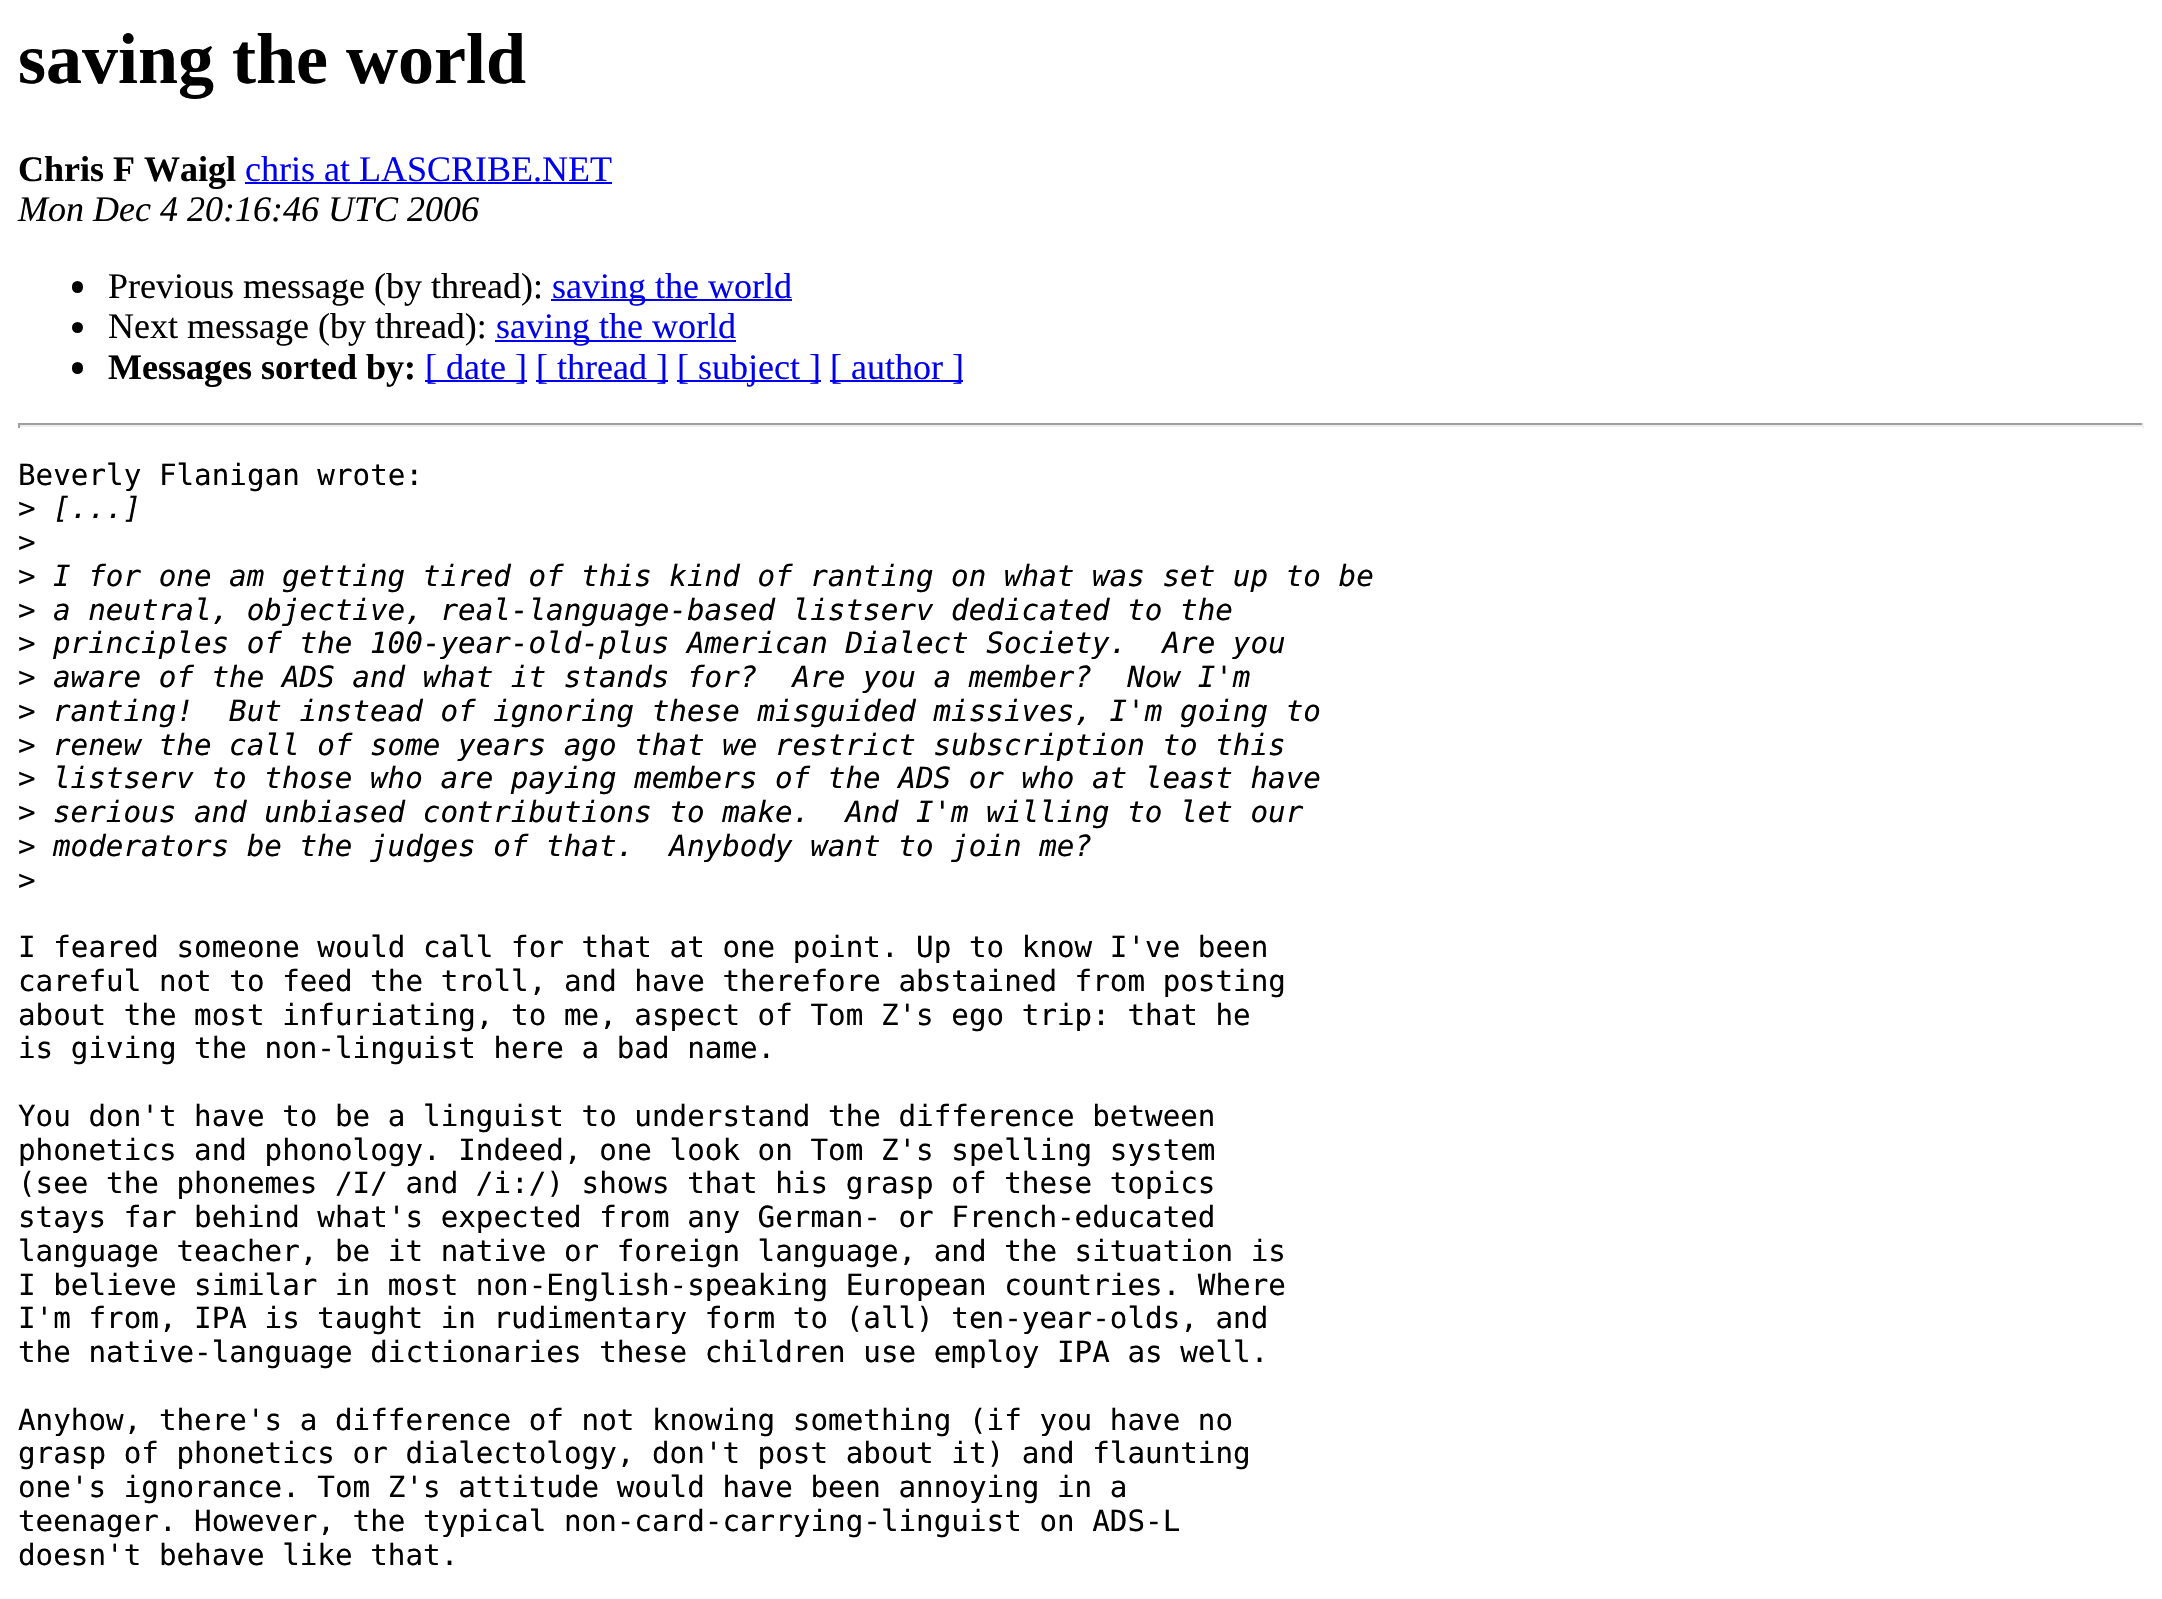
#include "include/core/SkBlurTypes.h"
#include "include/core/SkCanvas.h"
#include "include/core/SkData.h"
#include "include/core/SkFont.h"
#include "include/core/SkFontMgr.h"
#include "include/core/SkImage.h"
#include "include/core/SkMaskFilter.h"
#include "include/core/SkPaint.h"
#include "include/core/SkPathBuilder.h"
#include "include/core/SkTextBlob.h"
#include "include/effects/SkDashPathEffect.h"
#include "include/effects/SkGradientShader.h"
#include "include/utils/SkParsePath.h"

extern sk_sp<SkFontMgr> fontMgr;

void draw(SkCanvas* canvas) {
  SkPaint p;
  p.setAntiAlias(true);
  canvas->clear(SK_ColorWHITE);
  p.setColor(SkColorSetRGB(0, 0, 238));
  canvas->drawRect(SkRect::MakeLTRB(245, 182, 612, 184), p);
  p.setColor(SK_ColorBLACK);
  canvas->drawRoundRect(SkRect::MakeLTRB(72, 281, 83, 293), 5.5f, 5.5f, p);
  p.setColor(SkColorSetRGB(0, 0, 238));
  canvas->drawRect(SkRect::MakeLTRB(551, 299, 792, 301), p);
  p.setColor(SK_ColorBLACK);
  canvas->drawCircle(77.5f, 327.5f, 5.5f, p);
  p.setColor(SkColorSetRGB(0, 0, 238));
  canvas->drawRect(SkRect::MakeLTRB(495, 340, 736, 342), p);
  p.setColor(SK_ColorBLACK);
  canvas->drawRoundRect(SkRect::MakeLTRB(72, 362, 83, 374), 5.5f, 5.5f, p);
  p.setColor(SkColorSetRGB(0, 0, 238));
  canvas->drawRect(SkRect::MakeLTRB(425, 380, 527, 382), p);
  canvas->drawRect(SkRect::MakeLTRB(536, 380, 668, 382), p);
  canvas->drawRect(SkRect::MakeLTRB(677, 380, 821, 382), p);
  canvas->drawRect(SkRect::MakeLTRB(830, 380, 963, 382), p);
  p.setColor(SkColorSetRGB(159, 159, 159));
  canvas->drawRect(SkRect::MakeLTRB(18, 423, 2144, 425), p);
  p.setColor(SkColorSetRGB(238, 238, 238));
  canvas->drawRect(SkRect::MakeLTRB(2142, 423, 2144, 428), p);
  canvas->drawRect(SkRect::MakeLTRB(18, 425, 2144, 427), p);
  p.setColor(SkColorSetRGB(159, 159, 159));
  canvas->drawRect(SkRect::MakeLTRB(18, 423, 20, 428), p);
  SkFont font1(fontMgr->matchFamilyStyle("Liberation Serif", SkFontStyle::Bold()), 72);
  font1.setSubpixel(true);
  p.setColor(SK_ColorBLACK);
  canvas->drawString("saving the world", 18, 83, font1, p);
  SkFont font2(fontMgr->matchFamilyStyle("Liberation Serif", SkFontStyle::Bold()), 36);
  font2.setSubpixel(true);
  canvas->drawString("Chris F Waigl", 18, 181, font2, p);
  SkFont font3(fontMgr->matchFamilyStyle("Liberation Serif", SkFontStyle::Normal()), 36);
  font3.setSubpixel(true);
  p.setColor(SkColorSetRGB(0, 0, 238));
  canvas->drawString("chris at LASCRIBE.NET", 245, 181, font3, p);
  SkFont font4(fontMgr->matchFamilyStyle("Liberation Serif", SkFontStyle::Italic()), 36);
  font4.setSubpixel(true);
  p.setColor(SK_ColorBLACK);
  canvas->drawString("Mon Dec 4 20:16:46 UTC 2006", 18, 221, font4, p);
  canvas->drawString("Previous message (by thread):", 108, 298, font3, p);
  p.setColor(SkColorSetRGB(0, 0, 238));
  canvas->drawString("saving the world", 552, 298, font3, p);
  p.setColor(SK_ColorBLACK);
  canvas->drawString("Next message (by thread):", 108, 338, font3, p);
  p.setColor(SkColorSetRGB(0, 0, 238));
  canvas->drawString("saving the world", 496, 338, font3, p);
  p.setColor(SK_ColorBLACK);
  canvas->drawString("Messages sorted by:", 108, 379, font2, p);
  p.setColor(SkColorSetRGB(0, 0, 238));
  canvas->drawString("[ date ]", 425, 379, font3, p);
  canvas->drawString("[ thread ]", 536, 379, font3, p);
  canvas->drawString("[ subject ]", 677, 379, font3, p);
  canvas->drawString("[ author ]", 830, 379, font3, p);
  SkFont font5(fontMgr->matchFamilyStyle("DejaVu Sans Mono", SkFontStyle::Normal()), 29.25f);
  font5.setSubpixel(true);
  p.setColor(SK_ColorBLACK);
  canvas->drawString("Beverly Flanigan wrote:", 18, 485, font5, p);
  canvas->drawString(">", 18, 518, font5, p);
  SkFont font6(fontMgr->matchFamilyStyle("DejaVu Sans Mono", SkFontStyle::Italic()), 29.25f);
  font6.setSubpixel(true);
  canvas->drawString("[...]", 53, 518, font6, p);
  canvas->drawString(">", 18, 552, font5, p);
  canvas->drawString(">", 18, 586, font5, p);
  canvas->drawString("I for one am getting tired of this kind of ranting on what was set up to be", 53, 586, font6, p);
  canvas->drawString(">", 18, 620, font5, p);
  canvas->drawString("a neutral, objective, real-language-based listserv dedicated to the", 53, 620, font6, p);
  canvas->drawString(">", 18, 653, font5, p);
  canvas->drawString("principles of the 100-year-old-plus American Dialect Society.  Are you", 53, 653, font6, p);
  canvas->drawString(">", 18, 687, font5, p);
  canvas->drawString("aware of the ADS and what it stands for?  Are you a member?  Now I'm", 53, 687, font6, p);
  canvas->drawString(">", 18, 721, font5, p);
  canvas->drawString("ranting!  But instead of ignoring these misguided missives, I'm going to", 53, 721, font6, p);
  canvas->drawString(">", 18, 755, font5, p);
  canvas->drawString("renew the call of some years ago that we restrict subscription to this", 53, 755, font6, p);
  canvas->drawString(">", 18, 788, font5, p);
  canvas->drawString("listserv to those who are paying members of the ADS or who at least have", 53, 788, font6, p);
  canvas->drawString(">", 18, 822, font5, p);
  canvas->drawString("serious and unbiased contributions to make.  And I'm willing to let our", 53, 822, font6, p);
  canvas->drawString(">", 18, 856, font5, p);
  canvas->drawString("moderators be the judges of that.  Anybody want to join me?", 53, 856, font6, p);
  canvas->drawString(">", 18, 890, font5, p);
  canvas->drawString("I feared someone would call for that at one point. Up to know I've been", 18, 957, font5, p);
  canvas->drawString("careful not to feed the troll, and have therefore abstained from posting", 18, 991, font5, p);
  canvas->drawString("about the most infuriating, to me, aspect of Tom Z's ego trip: that he", 18, 1025, font5, p);
  canvas->drawString("is giving the non-linguist here a bad name.", 18, 1058, font5, p);
  canvas->drawString("You don't have to be a linguist to understand the difference between", 18, 1126, font5, p);
  canvas->drawString("phonetics and phonology. Indeed, one look on Tom Z's spelling system", 18, 1160, font5, p);
  canvas->drawString("(see the phonemes /I/ and /i:/) shows that his grasp of these topics", 18, 1193, font5, p);
  canvas->drawString("stays far behind what's expected from any German- or French-educated", 18, 1227, font5, p);
  canvas->drawString("language teacher, be it native or foreign language, and the situation is", 18, 1261, font5, p);
  canvas->drawString("I believe similar in most non-English-speaking European countries. Where", 18, 1295, font5, p);
  canvas->drawString("I'm from, IPA is taught in rudimentary form to (all) ten-year-olds, and", 18, 1328, font5, p);
  canvas->drawString("the native-language dictionaries these children use employ IPA as well.", 18, 1362, font5, p);
  canvas->drawString("Anyhow, there's a difference of not knowing something (if you have no", 18, 1430, font5, p);
  canvas->drawString("grasp of phonetics or dialectology, don't post about it) and flaunting", 18, 1463, font5, p);
  canvas->drawString("one's ignorance. Tom Z's attitude would have been annoying in a", 18, 1497, font5, p);
  canvas->drawString("teenager. However, the typical non-card-carrying-linguist on ADS-L", 18, 1531, font5, p);
  canvas->drawString("doesn't behave like that.", 18, 1565, font5, p);
}
